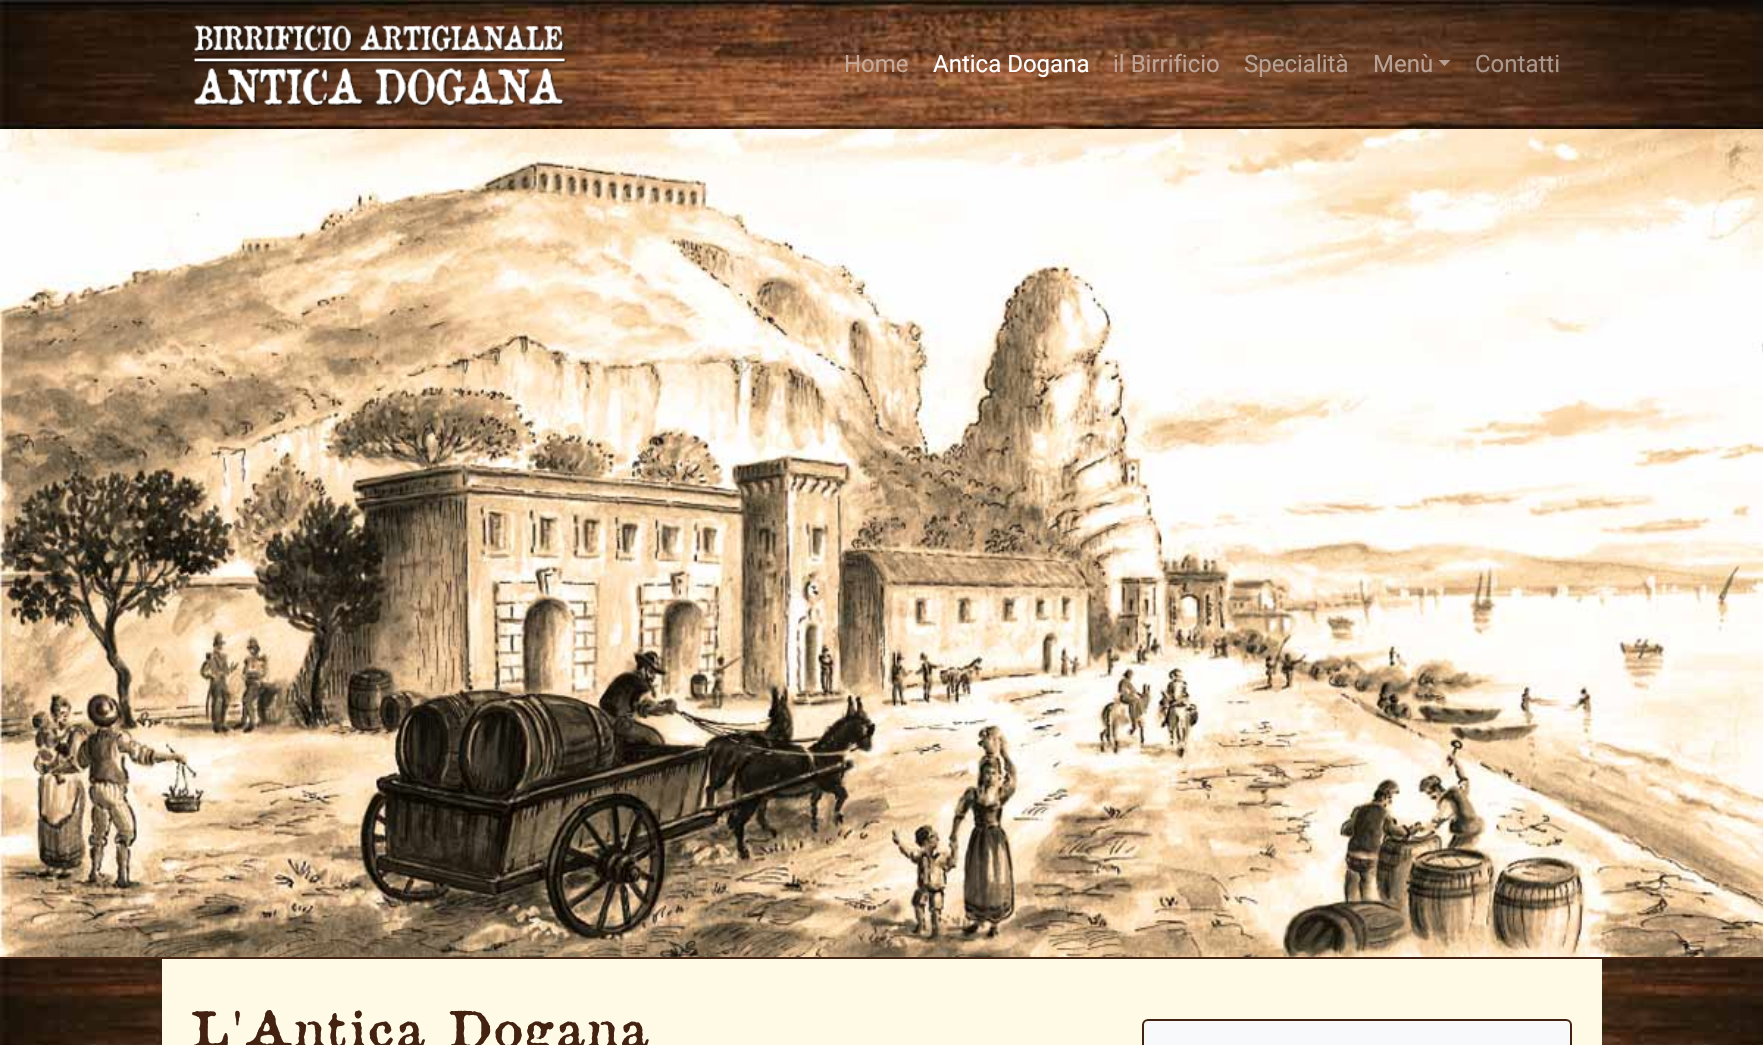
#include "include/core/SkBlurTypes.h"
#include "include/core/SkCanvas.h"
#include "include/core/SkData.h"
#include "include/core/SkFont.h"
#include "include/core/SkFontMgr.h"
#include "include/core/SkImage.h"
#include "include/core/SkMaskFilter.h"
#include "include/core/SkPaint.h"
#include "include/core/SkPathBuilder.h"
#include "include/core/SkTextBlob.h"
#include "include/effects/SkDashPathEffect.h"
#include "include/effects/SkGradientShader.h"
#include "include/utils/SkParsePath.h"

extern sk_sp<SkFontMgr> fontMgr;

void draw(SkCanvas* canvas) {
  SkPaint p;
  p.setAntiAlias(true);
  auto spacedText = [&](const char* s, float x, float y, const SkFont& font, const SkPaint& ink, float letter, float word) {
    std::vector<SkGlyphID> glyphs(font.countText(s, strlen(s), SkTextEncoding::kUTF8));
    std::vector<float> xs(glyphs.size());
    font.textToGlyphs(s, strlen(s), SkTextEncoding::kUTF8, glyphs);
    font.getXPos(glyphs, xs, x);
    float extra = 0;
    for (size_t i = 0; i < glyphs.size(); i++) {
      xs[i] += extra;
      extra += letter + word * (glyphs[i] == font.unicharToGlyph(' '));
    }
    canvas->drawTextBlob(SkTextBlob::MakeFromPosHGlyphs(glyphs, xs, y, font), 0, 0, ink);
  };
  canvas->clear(SK_ColorWHITE);
  canvas->drawImageRect(SkImages::DeferredFromEncodedData(SkData::MakeFromFileName("images/1.png")), SkRect::MakeLTRB(0, 0, 1763, 1045), SkSamplingOptions());
  canvas->drawImageRect(SkImages::DeferredFromEncodedData(SkData::MakeFromFileName("images/2.png")), SkRect::MakeLTRB(194, 24, 567, 108), SkSamplingOptions());
  p.setColor(SkColorSetARGB(128, 255, 255, 255));
  canvas->drawPath(SkPathBuilder().moveTo(1438.5f, 60).lineTo(1450.5f, 60).lineTo(1444.5f, 66).close().detach(), p);
  canvas->drawImageRect(SkImages::DeferredFromEncodedData(SkData::MakeFromFileName("images/3.png")), SkRect::MakeLTRB(0, 129, 1763, 957), SkSamplingOptions());
  p.setColor(SkColorSetRGB(67, 34, 17));
  canvas->drawRect(SkRect::MakeLTRB(0, 957, 1763, 959), p);
  p.setColor(SkColorSetRGB(255, 250, 230));
  canvas->drawRect(SkRect::MakeLTRB(162, 959, 1602, 1045), p);
  p.setColor(SkColorSetRGB(248, 249, 250));
  canvas->drawRoundRect(SkRect::MakeLTRB(1143, 1020, 1571, 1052), 5, 5, p);
  p.setStyle(SkPaint::kStroke_Style);
  p.setStrokeWidth(2);
  p.setColor(SkColorSetRGB(67, 34, 17));
  canvas->drawRoundRect(SkRect::MakeLTRB(1143, 1020, 1571, 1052), 5, 5, p);
  SkFont font1(fontMgr->matchFamilyStyle("Roboto", SkFontStyle::Normal()), 24);
  font1.setSubpixel(true);
  p.setStyle(SkPaint::kFill_Style);
  p.setColor(SkColorSetRGB(198, 171, 155));
  canvas->drawString("Home", 844, 72, font1, p);
  p.setColor(SK_ColorWHITE);
  canvas->drawString("Antica Dogana", 933, 72, font1, p);
  p.setColor(SkColorSetRGB(191, 165, 151));
  canvas->drawString("il Birrificio", 1113, 72, font1, p);
  p.setColor(SkColorSetRGB(183, 162, 149));
  canvas->drawString("Specialità", 1244, 72, font1, p);
  canvas->drawString("Menù", 1373, 72, font1, p);
  p.setColor(SkColorSetRGB(170, 153, 143));
  canvas->drawString("Contatti", 1475, 72, font1, p);
  SkFont font2(fontMgr->matchFamilyStyle("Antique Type", SkFontStyle(100, SkFontStyle::kNormal_Width, SkFontStyle::kItalic_Slant)), 48);
  font2.setSubpixel(true);
  p.setColor(SkColorSetRGB(67, 34, 17));
  spacedText("L'Antica Dogana", 192, 1047, font2, p, 3, 0);
}
